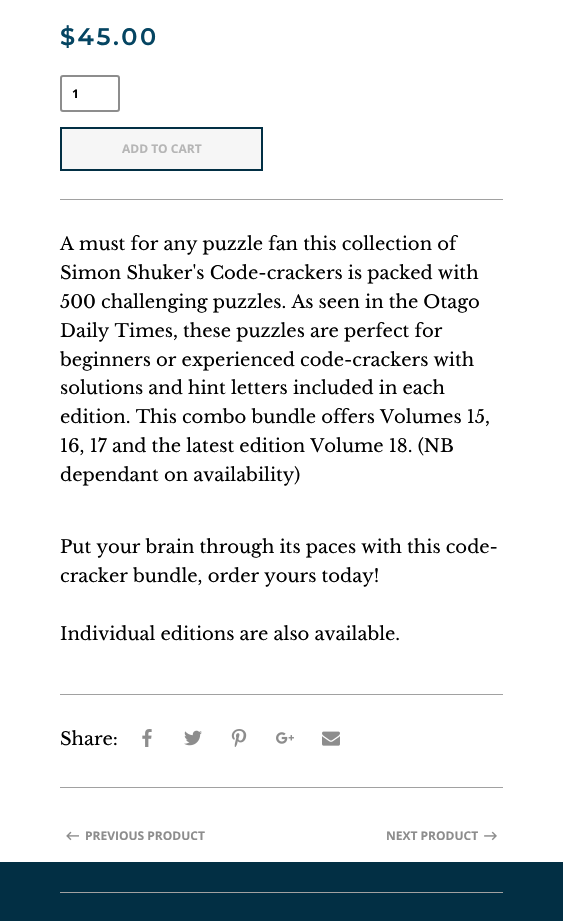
#include "include/core/SkBlurTypes.h"
#include "include/core/SkCanvas.h"
#include "include/core/SkData.h"
#include "include/core/SkFont.h"
#include "include/core/SkFontMgr.h"
#include "include/core/SkImage.h"
#include "include/core/SkMaskFilter.h"
#include "include/core/SkPaint.h"
#include "include/core/SkPathBuilder.h"
#include "include/core/SkTextBlob.h"
#include "include/effects/SkDashPathEffect.h"
#include "include/effects/SkGradientShader.h"
#include "include/utils/SkParsePath.h"

extern sk_sp<SkFontMgr> fontMgr;

void draw(SkCanvas* canvas) {
  SkPaint p;
  p.setAntiAlias(true);
  auto spacedText = [&](const char* s, float x, float y, const SkFont& font, const SkPaint& ink, float letter, float word) {
    std::vector<SkGlyphID> glyphs(font.countText(s, strlen(s), SkTextEncoding::kUTF8));
    std::vector<float> xs(glyphs.size());
    font.textToGlyphs(s, strlen(s), SkTextEncoding::kUTF8, glyphs);
    font.getXPos(glyphs, xs, x);
    float extra = 0;
    for (size_t i = 0; i < glyphs.size(); i++) {
      xs[i] += extra;
      extra += letter + word * (glyphs[i] == font.unicharToGlyph(' '));
    }
    canvas->drawTextBlob(SkTextBlob::MakeFromPosHGlyphs(glyphs, xs, y, font), 0, 0, ink);
  };
  canvas->clear(SK_ColorWHITE);
  p.setStyle(SkPaint::kStroke_Style);
  p.setStrokeWidth(2);
  p.setColor(SkColorSetRGB(141, 141, 141));
  canvas->drawRoundRect(SkRect::MakeLTRB(61, 76, 119, 111), 2, 2, p);
  p.setStyle(SkPaint::kFill_Style);
  p.setColor(SkColorSetRGB(246, 246, 246));
  canvas->drawRect(SkRect::MakeLTRB(61, 128, 262, 170), p);
  p.setStyle(SkPaint::kStroke_Style);
  p.setColor(SkColorSetRGB(2, 47, 68));
  canvas->drawRect(SkRect::MakeLTRB(61, 128, 262, 170), p);
  p.setStyle(SkPaint::kFill_Style);
  p.setColor(SkColorSetRGB(161, 161, 161));
  canvas->drawRect(SkRect::MakeLTRB(60, 199, 503, 200), p);
  canvas->drawRect(SkRect::MakeLTRB(60, 694, 503, 695), p);
  canvas->drawImageRect(SkImages::DeferredFromEncodedData(SkData::MakeFromFileName("images/1.png")), SkRect::MakeLTRB(142, 729, 152, 747), SkSamplingOptions());
  canvas->drawImageRect(SkImages::DeferredFromEncodedData(SkData::MakeFromFileName("images/2.png")), SkRect::MakeLTRB(184, 730, 202, 746), SkSamplingOptions());
  canvas->drawImageRect(SkImages::DeferredFromEncodedData(SkData::MakeFromFileName("images/3.png")), SkRect::MakeLTRB(231, 729, 247, 747), SkSamplingOptions());
  canvas->drawImageRect(SkImages::DeferredFromEncodedData(SkData::MakeFromFileName("images/4.png")), SkRect::MakeLTRB(276, 732, 294, 744), SkSamplingOptions());
  canvas->drawImageRect(SkImages::DeferredFromEncodedData(SkData::MakeFromFileName("images/5.png")), SkRect::MakeLTRB(322, 731, 340, 746), SkSamplingOptions());
  canvas->drawRect(SkRect::MakeLTRB(60, 787, 503, 788), p);
  canvas->drawImageRect(SkImages::DeferredFromEncodedData(SkData::MakeFromFileName("images/6.png")), SkRect::MakeLTRB(66, 831, 79, 841), SkSamplingOptions());
  canvas->drawImageRect(SkImages::DeferredFromEncodedData(SkData::MakeFromFileName("images/7.png")), SkRect::MakeLTRB(484, 831, 497, 841), SkSamplingOptions());
  p.setColor(SkColorSetRGB(2, 47, 68));
  canvas->drawRect(SkRect::MakeLTRB(0, 862, 563, 921), p);
  p.setColor(SkColorSetRGB(161, 161, 161));
  canvas->drawRect(SkRect::MakeLTRB(60, 892, 503, 893), p);
  SkFont font1(fontMgr->matchFamilyStyle("Montserrat", SkFontStyle(600, SkFontStyle::kNormal_Width, SkFontStyle::kUpright_Slant)), 24);
  font1.setSubpixel(true);
  p.setColor(SkColorSetRGB(5, 69, 98));
  spacedText("$45.00", 60, 45, font1, p, 2.5f, 0);
  SkFont font2(fontMgr->matchFamilyStyle("Open Sans", SkFontStyle::Bold()), 12);
  font2.setSubpixel(true);
  p.setColor(SK_ColorBLACK);
  canvas->drawString("1", 72, 98, font2, p);
  p.setColor(SkColorSetRGB(182, 182, 182));
  canvas->drawString("ADD TO CART", 122, 153, font2, p);
  SkFont font3(fontMgr->matchFamilyStyle("Libre Baskerville", SkFontStyle::Normal()), 18);
  font3.setSubpixel(true);
  p.setColor(SK_ColorBLACK);
  canvas->drawString("A must for any puzzle fan this collection of", 60, 250, font3, p);
  canvas->drawString("Simon Shuker's Code-crackers is packed with", 60, 279, font3, p);
  canvas->drawString("500 challenging puzzles. As seen in the Otago", 60, 308, font3, p);
  canvas->drawString("Daily Times, these puzzles are perfect for", 60, 337, font3, p);
  canvas->drawString("beginners or experienced code-crackers with", 60, 366, font3, p);
  canvas->drawString("solutions and hint letters included in each", 60, 394, font3, p);
  canvas->drawString("edition. This combo bundle offers Volumes 15,", 60, 423, font3, p);
  canvas->drawString("16, 17 and the latest edition Volume 18. (NB", 60, 452, font3, p);
  canvas->drawString("dependant on availability)", 60, 481, font3, p);
  canvas->drawString("Put your brain through its paces with this code-", 60, 553, font3, p);
  canvas->drawString("cracker bundle, order yours today!", 60, 582, font3, p);
  canvas->drawString("Individual editions are also available.", 60, 640, font3, p);
  canvas->drawString("Share:", 60, 745, font3, p);
  p.setColor(SkColorSetRGB(141, 141, 141));
  canvas->drawString("PREVIOUS PRODUCT", 85, 840, font2, p);
  canvas->drawString("NEXT PRODUCT", 386, 840, font2, p);
}
